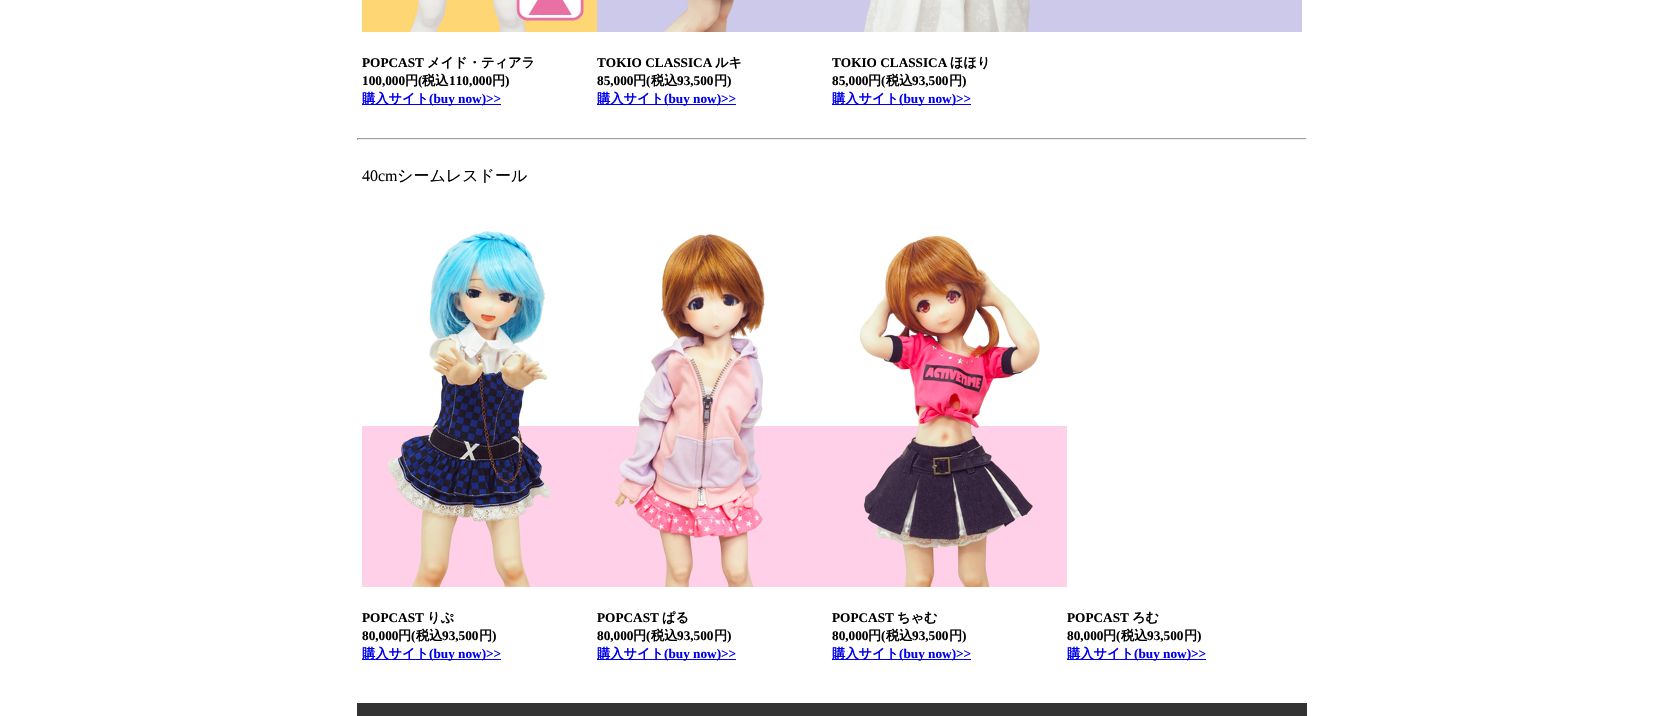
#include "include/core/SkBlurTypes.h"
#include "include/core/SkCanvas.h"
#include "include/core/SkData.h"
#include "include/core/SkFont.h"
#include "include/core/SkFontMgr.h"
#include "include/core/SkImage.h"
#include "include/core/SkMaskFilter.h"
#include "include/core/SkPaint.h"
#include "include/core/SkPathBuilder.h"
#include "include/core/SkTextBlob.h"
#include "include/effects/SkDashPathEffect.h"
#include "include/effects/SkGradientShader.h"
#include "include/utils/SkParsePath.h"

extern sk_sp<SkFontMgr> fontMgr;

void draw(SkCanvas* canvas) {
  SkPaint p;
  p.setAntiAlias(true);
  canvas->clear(SK_ColorWHITE);
  canvas->drawImageRect(SkImages::DeferredFromEncodedData(SkData::MakeFromFileName("images/1.png")), SkRect::MakeLTRB(362, 0, 597, 32), SkSamplingOptions());
  canvas->drawImageRect(SkImages::DeferredFromEncodedData(SkData::MakeFromFileName("images/2.png")), SkRect::MakeLTRB(597, 0, 832, 32), SkSamplingOptions());
  canvas->drawImageRect(SkImages::DeferredFromEncodedData(SkData::MakeFromFileName("images/3.png")), SkRect::MakeLTRB(832, 0, 1067, 32), SkSamplingOptions());
  p.setColor(SkColorSetRGB(205, 201, 234));
  canvas->drawRect(SkRect::MakeLTRB(1067, 0, 1302, 32), p);
  p.setColor(SkColorSetRGB(0, 0, 238));
  canvas->drawRect(SkRect::MakeLTRB(362, 104, 501, 105), p);
  canvas->drawRect(SkRect::MakeLTRB(597, 104, 736, 105), p);
  canvas->drawRect(SkRect::MakeLTRB(832, 104, 971, 105), p);
  p.setColor(SkColorSetRGB(159, 159, 159));
  canvas->drawRect(SkRect::MakeLTRB(357, 138, 1307, 139), p);
  p.setColor(SkColorSetRGB(238, 238, 238));
  canvas->drawRect(SkRect::MakeLTRB(1306, 138, 1307, 140), p);
  canvas->drawRect(SkRect::MakeLTRB(357, 139, 1307, 140), p);
  p.setColor(SkColorSetRGB(159, 159, 159));
  canvas->drawRect(SkRect::MakeLTRB(357, 138, 358, 140), p);
  canvas->drawImageRect(SkImages::DeferredFromEncodedData(SkData::MakeFromFileName("images/4.png")), SkRect::MakeLTRB(362, 231, 597, 587), SkSamplingOptions());
  canvas->drawImageRect(SkImages::DeferredFromEncodedData(SkData::MakeFromFileName("images/5.png")), SkRect::MakeLTRB(597, 234, 832, 587), SkSamplingOptions());
  canvas->drawImageRect(SkImages::DeferredFromEncodedData(SkData::MakeFromFileName("images/6.png")), SkRect::MakeLTRB(832, 236, 1067, 587), SkSamplingOptions());
  p.setColor(SkColorSetRGB(0, 0, 238));
  canvas->drawRect(SkRect::MakeLTRB(362, 659, 501, 660), p);
  canvas->drawRect(SkRect::MakeLTRB(597, 659, 736, 660), p);
  canvas->drawRect(SkRect::MakeLTRB(832, 659, 971, 660), p);
  canvas->drawRect(SkRect::MakeLTRB(1067, 659, 1206, 660), p);
  p.setColor(SkColorSetRGB(51, 51, 51));
  canvas->drawRect(SkRect::MakeLTRB(357, 703, 1307, 716), p);
  SkFont font1(fontMgr->matchFamilyStyle("Liberation Serif", SkFontStyle::Bold()), 13.25f);
  font1.setSubpixel(true);
  p.setColor(SK_ColorBLACK);
  canvas->drawString("POPCAST", 362, 67, font1, p);
  SkFont font2(fontMgr->matchFamilyStyle("WenQuanYi Zen Hei", SkFontStyle::Bold()), 13.25f);
  font2.setSubpixel(true);
  canvas->drawString("メイド・ティアラ", 427, 67, font2, p);
  canvas->drawString("100,000", 362, 85, font1, p);
  canvas->drawString("円", 405, 85, font2, p);
  canvas->drawString("(", 418, 85, font1, p);
  canvas->drawString("税込", 422, 85, font2, p);
  canvas->drawString("110,000", 449, 85, font1, p);
  canvas->drawString("円", 492, 85, font2, p);
  canvas->drawString(")", 505, 85, font1, p);
  p.setColor(SkColorSetRGB(0, 0, 238));
  canvas->drawString("購入サイト", 362, 103, font2, p);
  canvas->drawString("(buy now)>>", 429, 103, font1, p);
  p.setColor(SK_ColorBLACK);
  canvas->drawString("TOKIO CLASSICA", 597, 67, font1, p);
  canvas->drawString("ルキ", 715, 67, font2, p);
  canvas->drawString("85,000", 597, 85, font1, p);
  canvas->drawString("円", 633, 85, font2, p);
  canvas->drawString("(", 646, 85, font1, p);
  canvas->drawString("税込", 651, 85, font2, p);
  canvas->drawString("93,500", 677, 85, font1, p);
  canvas->drawString("円", 714, 85, font2, p);
  canvas->drawString(")", 727, 85, font1, p);
  p.setColor(SkColorSetRGB(0, 0, 238));
  canvas->drawString("購入サイト", 597, 103, font2, p);
  canvas->drawString("(buy now)>>", 664, 103, font1, p);
  p.setColor(SK_ColorBLACK);
  canvas->drawString("TOKIO CLASSICA", 832, 67, font1, p);
  canvas->drawString("ほほり", 950, 67, font2, p);
  canvas->drawString("85,000", 832, 85, font1, p);
  canvas->drawString("円", 868, 85, font2, p);
  canvas->drawString("(", 881, 85, font1, p);
  canvas->drawString("税込", 886, 85, font2, p);
  canvas->drawString("93,500", 912, 85, font1, p);
  canvas->drawString("円", 949, 85, font2, p);
  canvas->drawString(")", 962, 85, font1, p);
  p.setColor(SkColorSetRGB(0, 0, 238));
  canvas->drawString("購入サイト", 832, 103, font2, p);
  canvas->drawString("(buy now)>>", 899, 103, font1, p);
  SkFont font3(fontMgr->matchFamilyStyle("Liberation Serif", SkFontStyle::Normal()), 16);
  font3.setSubpixel(true);
  p.setColor(SK_ColorBLACK);
  canvas->drawString("40cm", 362, 181, font3, p);
  SkFont font4(fontMgr->matchFamilyStyle("WenQuanYi Zen Hei", SkFontStyle(500, SkFontStyle::kNormal_Width, SkFontStyle::kUpright_Slant)), 16);
  font4.setSubpixel(true);
  canvas->drawString("シームレスドール", 397, 181, font4, p);
  canvas->drawString("POPCAST", 362, 622, font1, p);
  canvas->drawString("りぷ", 427, 622, font2, p);
  canvas->drawString("80,000", 362, 640, font1, p);
  canvas->drawString("円", 398, 640, font2, p);
  canvas->drawString("(", 411, 640, font1, p);
  canvas->drawString("税込", 416, 640, font2, p);
  canvas->drawString("93,500", 442, 640, font1, p);
  canvas->drawString("円", 479, 640, font2, p);
  canvas->drawString(")", 492, 640, font1, p);
  p.setColor(SkColorSetRGB(0, 0, 238));
  canvas->drawString("購入サイト", 362, 658, font2, p);
  canvas->drawString("(buy now)>>", 429, 658, font1, p);
  p.setColor(SK_ColorBLACK);
  canvas->drawString("POPCAST", 597, 622, font1, p);
  canvas->drawString("ぱる", 662, 622, font2, p);
  canvas->drawString("80,000", 597, 640, font1, p);
  canvas->drawString("円", 633, 640, font2, p);
  canvas->drawString("(", 646, 640, font1, p);
  canvas->drawString("税込", 651, 640, font2, p);
  canvas->drawString("93,500", 677, 640, font1, p);
  canvas->drawString("円", 714, 640, font2, p);
  canvas->drawString(")", 727, 640, font1, p);
  p.setColor(SkColorSetRGB(0, 0, 238));
  canvas->drawString("購入サイト", 597, 658, font2, p);
  canvas->drawString("(buy now)>>", 664, 658, font1, p);
  p.setColor(SK_ColorBLACK);
  canvas->drawString("POPCAST", 832, 622, font1, p);
  canvas->drawString("ちゃむ", 897, 622, font2, p);
  canvas->drawString("80,000", 832, 640, font1, p);
  canvas->drawString("円", 868, 640, font2, p);
  canvas->drawString("(", 881, 640, font1, p);
  canvas->drawString("税込", 886, 640, font2, p);
  canvas->drawString("93,500", 912, 640, font1, p);
  canvas->drawString("円", 949, 640, font2, p);
  canvas->drawString(")", 962, 640, font1, p);
  p.setColor(SkColorSetRGB(0, 0, 238));
  canvas->drawString("購入サイト", 832, 658, font2, p);
  canvas->drawString("(buy now)>>", 899, 658, font1, p);
  p.setColor(SK_ColorBLACK);
  canvas->drawString("POPCAST", 1067, 622, font1, p);
  canvas->drawString("ろむ", 1132, 622, font2, p);
  canvas->drawString("80,000", 1067, 640, font1, p);
  canvas->drawString("円", 1103, 640, font2, p);
  canvas->drawString("(", 1116, 640, font1, p);
  canvas->drawString("税込", 1121, 640, font2, p);
  canvas->drawString("93,500", 1147, 640, font1, p);
  canvas->drawString("円", 1184, 640, font2, p);
  canvas->drawString(")", 1197, 640, font1, p);
  p.setColor(SkColorSetRGB(0, 0, 238));
  canvas->drawString("購入サイト", 1067, 658, font2, p);
  canvas->drawString("(buy now)>>", 1134, 658, font1, p);
}
